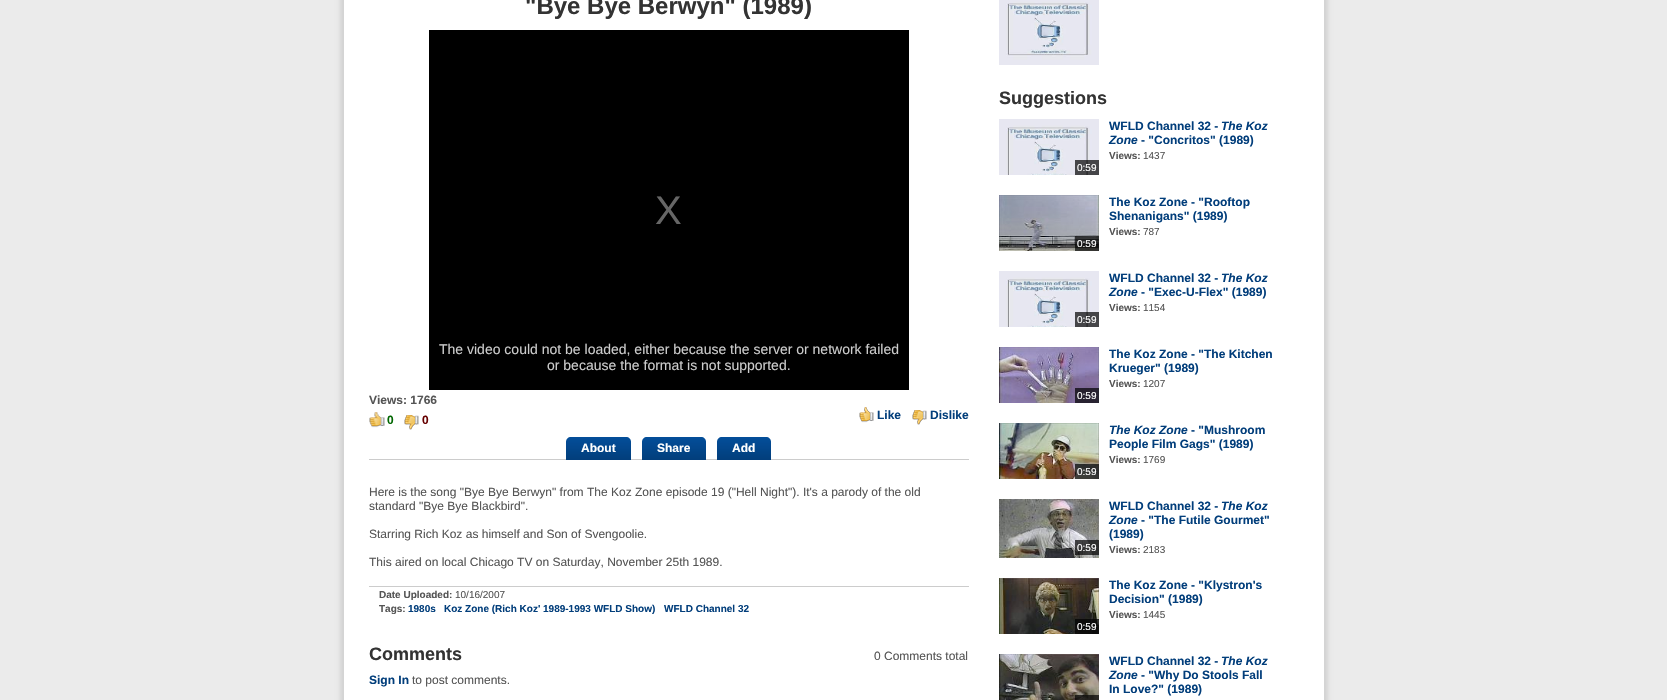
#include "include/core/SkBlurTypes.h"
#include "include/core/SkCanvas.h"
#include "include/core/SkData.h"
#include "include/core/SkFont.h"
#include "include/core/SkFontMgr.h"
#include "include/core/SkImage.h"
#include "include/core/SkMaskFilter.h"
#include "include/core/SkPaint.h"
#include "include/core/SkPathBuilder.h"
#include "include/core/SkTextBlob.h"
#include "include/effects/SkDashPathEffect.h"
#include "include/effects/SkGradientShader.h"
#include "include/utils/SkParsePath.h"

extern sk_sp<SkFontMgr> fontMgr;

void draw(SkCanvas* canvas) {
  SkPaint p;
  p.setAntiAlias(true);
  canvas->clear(SkColorSetRGB(235, 235, 235));
  p.setColor(SkColorSetARGB(26, 1, 1, 1));
  p.setMaskFilter(SkMaskFilter::MakeBlur(kNormal_SkBlurStyle, 2));
  canvas->drawRect(SkRect::MakeLTRB(340, -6, 1328, 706), p);
  p.setMaskFilter(nullptr);
  p.setColor(SK_ColorWHITE);
  canvas->drawRect(SkRect::MakeLTRB(344, 0, 1324, 700), p);
  p.setColor(SK_ColorBLACK);
  canvas->drawRect(SkRect::MakeLTRB(429, 30, 909, 390), p);
  canvas->drawImageRect(SkImages::DeferredFromEncodedData(SkData::MakeFromFileName("images/1.png")), SkRect::MakeLTRB(369, 412, 385, 428), SkSamplingOptions());
  canvas->drawImageRect(SkImages::DeferredFromEncodedData(SkData::MakeFromFileName("images/2.png")), SkRect::MakeLTRB(404, 415, 419, 430), SkSamplingOptions());
  canvas->drawImageRect(SkImages::DeferredFromEncodedData(SkData::MakeFromFileName("images/3.png")), SkRect::MakeLTRB(859, 407, 874, 423), SkSamplingOptions());
  canvas->drawImageRect(SkImages::DeferredFromEncodedData(SkData::MakeFromFileName("images/2.png")), SkRect::MakeLTRB(912, 410, 927, 425), SkSamplingOptions());
  p.setColor(SkColorSetRGB(204, 204, 204));
  canvas->drawRect(SkRect::MakeLTRB(369, 459, 969, 460), p);
  {
    const SkColor colors[] = {SkColorSetRGB(3, 78, 154), SkColorSetRGB(2, 62, 123)};
    const float stops[] = {0, 1};
    const SkPoint ends[] = {{599, 437}, {599, 460}};
    p.setShader(SkGradientShader::MakeLinear(ends, colors, stops, 2, SkTileMode::kClamp));
    p.setAlpha(255);
  }
  canvas->drawPath(SkPathBuilder().moveTo(571, 437).lineTo(626, 437).cubicTo(629, 437, 631, 439, 631, 442).lineTo(631, 460).lineTo(566, 460).lineTo(566, 442).cubicTo(566, 439, 568, 437, 571, 437).close().detach(), p);
  {
    const SkColor colors[] = {SkColorSetRGB(3, 78, 154), SkColorSetRGB(2, 62, 123)};
    const float stops[] = {0, 1};
    const SkPoint ends[] = {{674, 437}, {674, 460}};
    p.setShader(SkGradientShader::MakeLinear(ends, colors, stops, 2, SkTileMode::kClamp));
    p.setAlpha(255);
  }
  canvas->drawPath(SkPathBuilder().moveTo(647, 437).lineTo(701, 437).cubicTo(704, 437, 706, 439, 706, 442).lineTo(706, 460).lineTo(642, 460).lineTo(642, 442).cubicTo(642, 439, 644, 437, 647, 437).close().detach(), p);
  {
    const SkColor colors[] = {SkColorSetRGB(3, 78, 154), SkColorSetRGB(2, 62, 123)};
    const float stops[] = {0, 1};
    const SkPoint ends[] = {{744, 437}, {744, 460}};
    p.setShader(SkGradientShader::MakeLinear(ends, colors, stops, 2, SkTileMode::kClamp));
    p.setAlpha(255);
  }
  canvas->drawPath(SkPathBuilder().moveTo(722, 437).lineTo(766, 437).cubicTo(769, 437, 771, 439, 771, 442).lineTo(771, 460).lineTo(717, 460).lineTo(717, 442).cubicTo(717, 439, 719, 437, 722, 437).close().detach(), p);
  p.setShader(nullptr);
  p.setColor(SkColorSetRGB(204, 204, 204));
  canvas->drawRect(SkRect::MakeLTRB(369, 586, 969, 587), p);
  canvas->drawImageRect(SkImages::DeferredFromEncodedData(SkData::MakeFromFileName("images/4.png")), SkRect::MakeLTRB(999, 0, 1099, 65), SkSamplingOptions());
  canvas->drawImageRect(SkImages::DeferredFromEncodedData(SkData::MakeFromFileName("images/5.png")), SkRect::MakeLTRB(999, 119, 1099, 175), SkSamplingOptions());
  p.setColor(SkColorSetARGB(179, 0, 0, 0));
  canvas->drawRect(SkRect::MakeLTRB(1075, 160, 1099, 175), p);
  canvas->drawImageRect(SkImages::DeferredFromEncodedData(SkData::MakeFromFileName("images/6.png")), SkRect::MakeLTRB(999, 195, 1099, 251), SkSamplingOptions());
  canvas->drawRect(SkRect::MakeLTRB(1075, 236, 1099, 251), p);
  canvas->drawImageRect(SkImages::DeferredFromEncodedData(SkData::MakeFromFileName("images/5.png")), SkRect::MakeLTRB(999, 271, 1099, 327), SkSamplingOptions());
  canvas->drawRect(SkRect::MakeLTRB(1075, 312, 1099, 327), p);
  canvas->drawImageRect(SkImages::DeferredFromEncodedData(SkData::MakeFromFileName("images/7.png")), SkRect::MakeLTRB(999, 347, 1099, 403), SkSamplingOptions());
  canvas->drawRect(SkRect::MakeLTRB(1075, 388, 1099, 403), p);
  canvas->drawImageRect(SkImages::DeferredFromEncodedData(SkData::MakeFromFileName("images/8.png")), SkRect::MakeLTRB(999, 423, 1099, 479), SkSamplingOptions());
  canvas->drawRect(SkRect::MakeLTRB(1075, 464, 1099, 479), p);
  canvas->drawImageRect(SkImages::DeferredFromEncodedData(SkData::MakeFromFileName("images/9.png")), SkRect::MakeLTRB(999, 499, 1099, 558), SkSamplingOptions());
  canvas->drawRect(SkRect::MakeLTRB(1075, 540, 1099, 555), p);
  canvas->drawImageRect(SkImages::DeferredFromEncodedData(SkData::MakeFromFileName("images/10.png")), SkRect::MakeLTRB(999, 578, 1099, 634), SkSamplingOptions());
  canvas->drawRect(SkRect::MakeLTRB(1075, 619, 1099, 634), p);
  canvas->drawImageRect(SkImages::DeferredFromEncodedData(SkData::MakeFromFileName("images/11.png")), SkRect::MakeLTRB(999, 654, 1099, 700), SkSamplingOptions());
  canvas->drawRect(SkRect::MakeLTRB(1075, 695, 1099, 700), p);
  SkFont font1(fontMgr->matchFamilyStyle("Liberation Sans", SkFontStyle::Bold()), 24);
  font1.setSubpixel(true);
  p.setColor(SkColorSetRGB(51, 51, 51));
  canvas->drawString("\"Bye Bye Berwyn\" (1989)", 525, 14, font1, p);
  SkFont font2(fontMgr->matchFamilyStyle("Liberation Sans", SkFontStyle::Normal()), 40);
  font2.setSubpixel(true);
  p.setColor(SkColorSetRGB(102, 102, 102));
  canvas->drawString("X", 655, 224, font2, p);
  SkFont font3(fontMgr->matchFamilyStyle("Liberation Sans", SkFontStyle::Normal()), 14);
  font3.setSubpixel(true);
  p.setColor(SkColorSetRGB(204, 204, 204));
  canvas->drawString("The video could not be loaded, either because the server or network failed", 439, 354, font3, p);
  canvas->drawString("or because the format is not supported.", 547, 370, font3, p);
  SkFont font4(fontMgr->matchFamilyStyle("Liberation Sans", SkFontStyle::Bold()), 12);
  font4.setSubpixel(true);
  p.setColor(SkColorSetRGB(85, 85, 85));
  canvas->drawString("Views: 1766", 369, 404, font4, p);
  p.setColor(SkColorSetRGB(0, 102, 0));
  canvas->drawString("0", 387, 424, font4, p);
  p.setColor(SkColorSetRGB(102, 0, 0));
  canvas->drawString("0", 422, 424, font4, p);
  p.setColor(SkColorSetRGB(2, 62, 123));
  canvas->drawString("Like", 877, 419, font4, p);
  canvas->drawString("Dislike", 930, 419, font4, p);
  p.setColor(SK_ColorWHITE);
  canvas->drawString("About", 581, 452, font4, p);
  canvas->drawString("Share", 657, 452, font4, p);
  canvas->drawString("Add", 732, 452, font4, p);
  SkFont font5(fontMgr->matchFamilyStyle("Liberation Sans", SkFontStyle::Normal()), 12);
  font5.setSubpixel(true);
  p.setColor(SkColorSetRGB(85, 85, 85));
  canvas->drawString("Here is the song \"Bye Bye Berwyn\" from The Koz Zone episode 19 (\"Hell Night\"). It's a parody of the old", 369, 496, font5, p);
  canvas->drawString("standard \"Bye Bye Blackbird\".", 369, 510, font5, p);
  canvas->drawString("Starring Rich Koz as himself and Son of Svengoolie.", 369, 538, font5, p);
  canvas->drawString("This aired on local Chicago TV on Saturday, November 25th 1989.", 369, 566, font5, p);
  SkFont font6(fontMgr->matchFamilyStyle("Liberation Sans", SkFontStyle::Bold()), 10);
  font6.setSubpixel(true);
  canvas->drawString("Date Uploaded:", 379, 598, font6, p);
  SkFont font7(fontMgr->matchFamilyStyle("Liberation Sans", SkFontStyle::Normal()), 10);
  font7.setSubpixel(true);
  canvas->drawString("10/16/2007", 455, 598, font7, p);
  canvas->drawString("Tags:", 379, 612, font6, p);
  p.setColor(SkColorSetRGB(2, 62, 123));
  canvas->drawString("1980s", 408, 612, font6, p);
  canvas->drawString("Koz Zone (Rich Koz' 1989-1993 WFLD Show)", 444, 612, font6, p);
  canvas->drawString("WFLD Channel 32", 664, 612, font6, p);
  SkFont font8(fontMgr->matchFamilyStyle("Liberation Sans", SkFontStyle::Bold()), 18);
  font8.setSubpixel(true);
  p.setColor(SkColorSetRGB(51, 51, 51));
  canvas->drawString("Comments", 369, 660, font8, p);
  p.setColor(SkColorSetRGB(85, 85, 85));
  canvas->drawString("0 Comments total", 874, 660, font5, p);
  p.setColor(SkColorSetRGB(2, 62, 123));
  canvas->drawString("Sign In", 369, 684, font4, p);
  p.setColor(SkColorSetRGB(85, 85, 85));
  canvas->drawString("to post comments.", 412, 684, font5, p);
  p.setColor(SkColorSetRGB(51, 51, 51));
  canvas->drawString("Suggestions", 999, 104, font8, p);
  p.setColor(SkColorSetRGB(2, 62, 123));
  canvas->drawString("WFLD Channel 32 -", 1109, 130, font4, p);
  SkFont font9(fontMgr->matchFamilyStyle("Liberation Sans", SkFontStyle::BoldItalic()), 12);
  font9.setSubpixel(true);
  canvas->drawString("The Koz", 1221, 130, font9, p);
  canvas->drawString("Zone", 1109, 144, font9, p);
  canvas->drawString("- \"Concritos\" (1989)", 1141, 144, font4, p);
  p.setColor(SkColorSetRGB(85, 85, 85));
  canvas->drawString("Views:", 1109, 159, font6, p);
  canvas->drawString("1437", 1143, 159, font7, p);
  p.setColor(SK_ColorWHITE);
  canvas->drawString("0:59", 1077, 171, font7, p);
  p.setColor(SkColorSetRGB(2, 62, 123));
  canvas->drawString("The Koz Zone - \"Rooftop", 1109, 206, font4, p);
  canvas->drawString("Shenanigans\" (1989)", 1109, 220, font4, p);
  p.setColor(SkColorSetRGB(85, 85, 85));
  canvas->drawString("Views:", 1109, 235, font6, p);
  canvas->drawString("787", 1143, 235, font7, p);
  p.setColor(SK_ColorWHITE);
  canvas->drawString("0:59", 1077, 247, font7, p);
  p.setColor(SkColorSetRGB(2, 62, 123));
  canvas->drawString("WFLD Channel 32 -", 1109, 282, font4, p);
  canvas->drawString("The Koz", 1221, 282, font9, p);
  canvas->drawString("Zone", 1109, 296, font9, p);
  canvas->drawString("- \"Exec-U-Flex\" (1989)", 1141, 296, font4, p);
  p.setColor(SkColorSetRGB(85, 85, 85));
  canvas->drawString("Views:", 1109, 311, font6, p);
  canvas->drawString("1154", 1143, 311, font7, p);
  p.setColor(SK_ColorWHITE);
  canvas->drawString("0:59", 1077, 323, font7, p);
  p.setColor(SkColorSetRGB(2, 62, 123));
  canvas->drawString("The Koz Zone - \"The Kitchen", 1109, 358, font4, p);
  canvas->drawString("Krueger\" (1989)", 1109, 372, font4, p);
  p.setColor(SkColorSetRGB(85, 85, 85));
  canvas->drawString("Views:", 1109, 387, font6, p);
  canvas->drawString("1207", 1143, 387, font7, p);
  p.setColor(SK_ColorWHITE);
  canvas->drawString("0:59", 1077, 399, font7, p);
  p.setColor(SkColorSetRGB(2, 62, 123));
  canvas->drawString("The Koz Zone", 1109, 434, font9, p);
  canvas->drawString("- \"Mushroom", 1191, 434, font4, p);
  canvas->drawString("People Film Gags\" (1989)", 1109, 448, font4, p);
  p.setColor(SkColorSetRGB(85, 85, 85));
  canvas->drawString("Views:", 1109, 463, font6, p);
  canvas->drawString("1769", 1143, 463, font7, p);
  p.setColor(SK_ColorWHITE);
  canvas->drawString("0:59", 1077, 475, font7, p);
  canvas->drawString("0:59", 1077, 551, font7, p);
  p.setColor(SkColorSetRGB(2, 62, 123));
  canvas->drawString("WFLD Channel 32 -", 1109, 510, font4, p);
  canvas->drawString("The Koz", 1221, 510, font9, p);
  canvas->drawString("Zone", 1109, 524, font9, p);
  canvas->drawString("- \"The Futile Gourmet\"", 1141, 524, font4, p);
  canvas->drawString("(1989)", 1109, 538, font4, p);
  p.setColor(SkColorSetRGB(85, 85, 85));
  canvas->drawString("Views:", 1109, 553, font6, p);
  canvas->drawString("2183", 1143, 553, font7, p);
  p.setColor(SkColorSetRGB(2, 62, 123));
  canvas->drawString("The Koz Zone - \"Klystron's", 1109, 589, font4, p);
  canvas->drawString("Decision\" (1989)", 1109, 603, font4, p);
  p.setColor(SkColorSetRGB(85, 85, 85));
  canvas->drawString("Views:", 1109, 618, font6, p);
  canvas->drawString("1445", 1143, 618, font7, p);
  p.setColor(SK_ColorWHITE);
  canvas->drawString("0:59", 1077, 630, font7, p);
  p.setColor(SkColorSetRGB(2, 62, 123));
  canvas->drawString("WFLD Channel 32 -", 1109, 665, font4, p);
  canvas->drawString("The Koz", 1221, 665, font9, p);
  canvas->drawString("Zone", 1109, 679, font9, p);
  canvas->drawString("- \"Why Do Stools Fall", 1141, 679, font4, p);
  canvas->drawString("In Love?\" (1989)", 1109, 693, font4, p);
}
